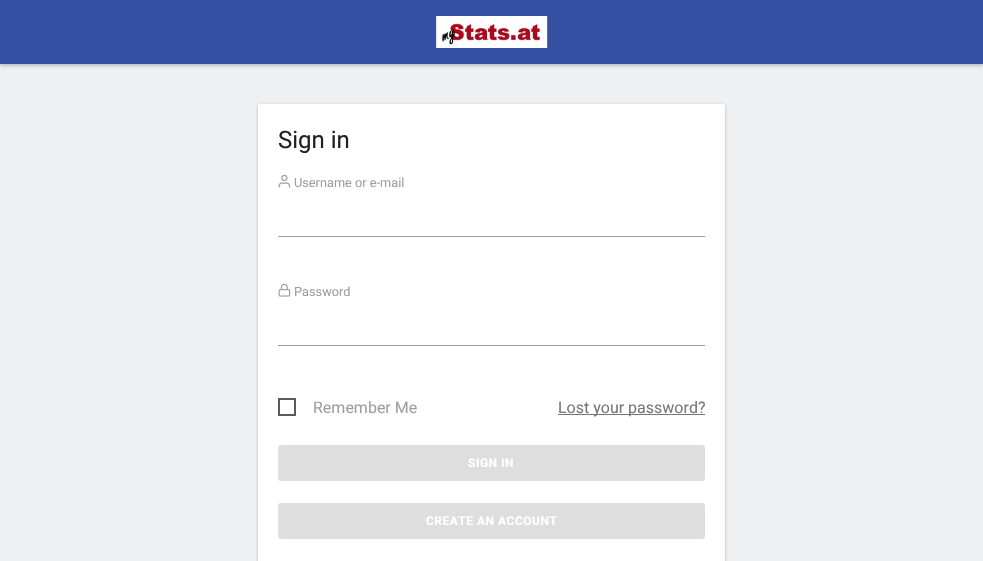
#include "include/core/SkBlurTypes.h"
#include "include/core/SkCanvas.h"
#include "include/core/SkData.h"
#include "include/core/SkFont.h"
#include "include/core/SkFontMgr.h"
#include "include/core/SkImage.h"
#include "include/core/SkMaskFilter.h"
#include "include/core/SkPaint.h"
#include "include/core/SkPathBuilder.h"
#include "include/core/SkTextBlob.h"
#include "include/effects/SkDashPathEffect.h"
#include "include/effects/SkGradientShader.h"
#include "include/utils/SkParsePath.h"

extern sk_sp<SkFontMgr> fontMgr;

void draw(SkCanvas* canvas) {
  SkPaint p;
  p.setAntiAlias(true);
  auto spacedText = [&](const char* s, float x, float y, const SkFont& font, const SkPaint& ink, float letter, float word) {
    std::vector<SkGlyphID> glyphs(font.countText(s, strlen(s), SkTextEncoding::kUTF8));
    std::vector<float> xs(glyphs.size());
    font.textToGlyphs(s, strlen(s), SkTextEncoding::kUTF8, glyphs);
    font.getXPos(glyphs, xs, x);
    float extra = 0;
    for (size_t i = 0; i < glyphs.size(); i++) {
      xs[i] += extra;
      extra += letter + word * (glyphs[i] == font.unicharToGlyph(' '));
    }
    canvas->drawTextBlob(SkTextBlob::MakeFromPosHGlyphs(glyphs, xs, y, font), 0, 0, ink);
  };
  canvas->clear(SkColorSetRGB(239, 240, 241));
  p.setColor(SkColorSetARGB(31, 0, 0, 0));
  p.setMaskFilter(SkMaskFilter::MakeBlur(kNormal_SkBlurStyle, 1.5f));
  canvas->drawRect(SkRect::MakeLTRB(0, 0, 983, 64), p);
  p.setMaskFilter(nullptr);
  p.setColor(SkColorSetARGB(41, 0, 0, 0));
  p.setMaskFilter(SkMaskFilter::MakeBlur(kNormal_SkBlurStyle, 1.5f));
  canvas->drawRect(SkRect::MakeLTRB(0, 2, 983, 66), p);
  p.setMaskFilter(nullptr);
  p.setColor(SkColorSetRGB(52, 80, 163));
  canvas->drawRect(SkRect::MakeLTRB(0, 0, 983, 64), p);
  canvas->drawImageRect(SkImages::DeferredFromEncodedData(SkData::MakeFromFileName("images/1.png")), SkRect::MakeLTRB(436, 16, 548, 48), SkSamplingOptions());
  p.setColor(SkColorSetARGB(31, 0, 0, 0));
  p.setMaskFilter(SkMaskFilter::MakeBlur(kNormal_SkBlurStyle, 1.5f));
  canvas->drawRoundRect(SkRect::MakeLTRB(258, 104, 725, 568), 2, 2, p);
  p.setMaskFilter(nullptr);
  p.setColor(SkColorSetARGB(41, 0, 0, 0));
  p.setMaskFilter(SkMaskFilter::MakeBlur(kNormal_SkBlurStyle, 1.5f));
  canvas->drawRoundRect(SkRect::MakeLTRB(258, 106, 725, 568), 2, 2, p);
  p.setMaskFilter(nullptr);
  p.setColor(SK_ColorWHITE);
  canvas->drawRoundRect(SkRect::MakeLTRB(258, 104, 725, 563), 2, 2, p);
  canvas->drawImageRect(SkImages::DeferredFromEncodedData(SkData::MakeFromFileName("images/2.png")), SkRect::MakeLTRB(278, 174, 291, 188), SkSamplingOptions());
  p.setColor(SkColorSetRGB(158, 158, 158));
  canvas->drawRect(SkRect::MakeLTRB(278, 236, 705, 237), p);
  canvas->drawImageRect(SkImages::DeferredFromEncodedData(SkData::MakeFromFileName("images/3.png")), SkRect::MakeLTRB(278, 283, 291, 297), SkSamplingOptions());
  canvas->drawRect(SkRect::MakeLTRB(278, 345, 705, 346), p);
  p.setStyle(SkPaint::kStroke_Style);
  p.setStrokeWidth(2);
  p.setColor(SkColorSetRGB(90, 90, 90));
  canvas->drawRect(SkRect::MakeLTRB(279, 399, 295, 415), p);
  p.setStyle(SkPaint::kFill_Style);
  p.setColor(SkColorSetRGB(119, 119, 119));
  canvas->drawRect(SkRect::MakeLTRB(558, 414, 705, 415), p);
  p.setColor(SkColorSetRGB(222, 222, 222));
  canvas->drawRoundRect(SkRect::MakeLTRB(278, 445, 705, 481), 3, 3, p);
  canvas->drawRoundRect(SkRect::MakeLTRB(278, 503, 705, 539), 3, 3, p);
  SkFont font1(fontMgr->matchFamilyStyle("Roboto", SkFontStyle::Normal()), 24);
  font1.setSubpixel(true);
  p.setColor(SkColorSetRGB(33, 33, 33));
  canvas->drawString("Sign in", 278, 148, font1, p);
  SkFont font2(fontMgr->matchFamilyStyle("Roboto", SkFontStyle::Normal()), 12.75f);
  font2.setSubpixel(true);
  p.setColor(SkColorSetRGB(158, 158, 158));
  canvas->drawString("Username or e-mail", 294, 187, font2, p);
  canvas->drawString("Password", 294, 296, font2, p);
  SkFont font3(fontMgr->matchFamilyStyle("Roboto", SkFontStyle::Normal()), 16);
  font3.setSubpixel(true);
  canvas->drawString("Remember Me", 313, 413, font3, p);
  p.setColor(SkColorSetRGB(119, 119, 119));
  canvas->drawString("Lost your password?", 558, 413, font3, p);
  SkFont font4(fontMgr->matchFamilyStyle("Roboto", SkFontStyle::Bold()), 12);
  font4.setSubpixel(true);
  p.setColor(SK_ColorWHITE);
  spacedText("SIGN IN", 468, 467, font4, p, 0.5f, 0);
  spacedText("CREATE AN ACCOUNT", 426, 525, font4, p, 0.5f, 0);
}
